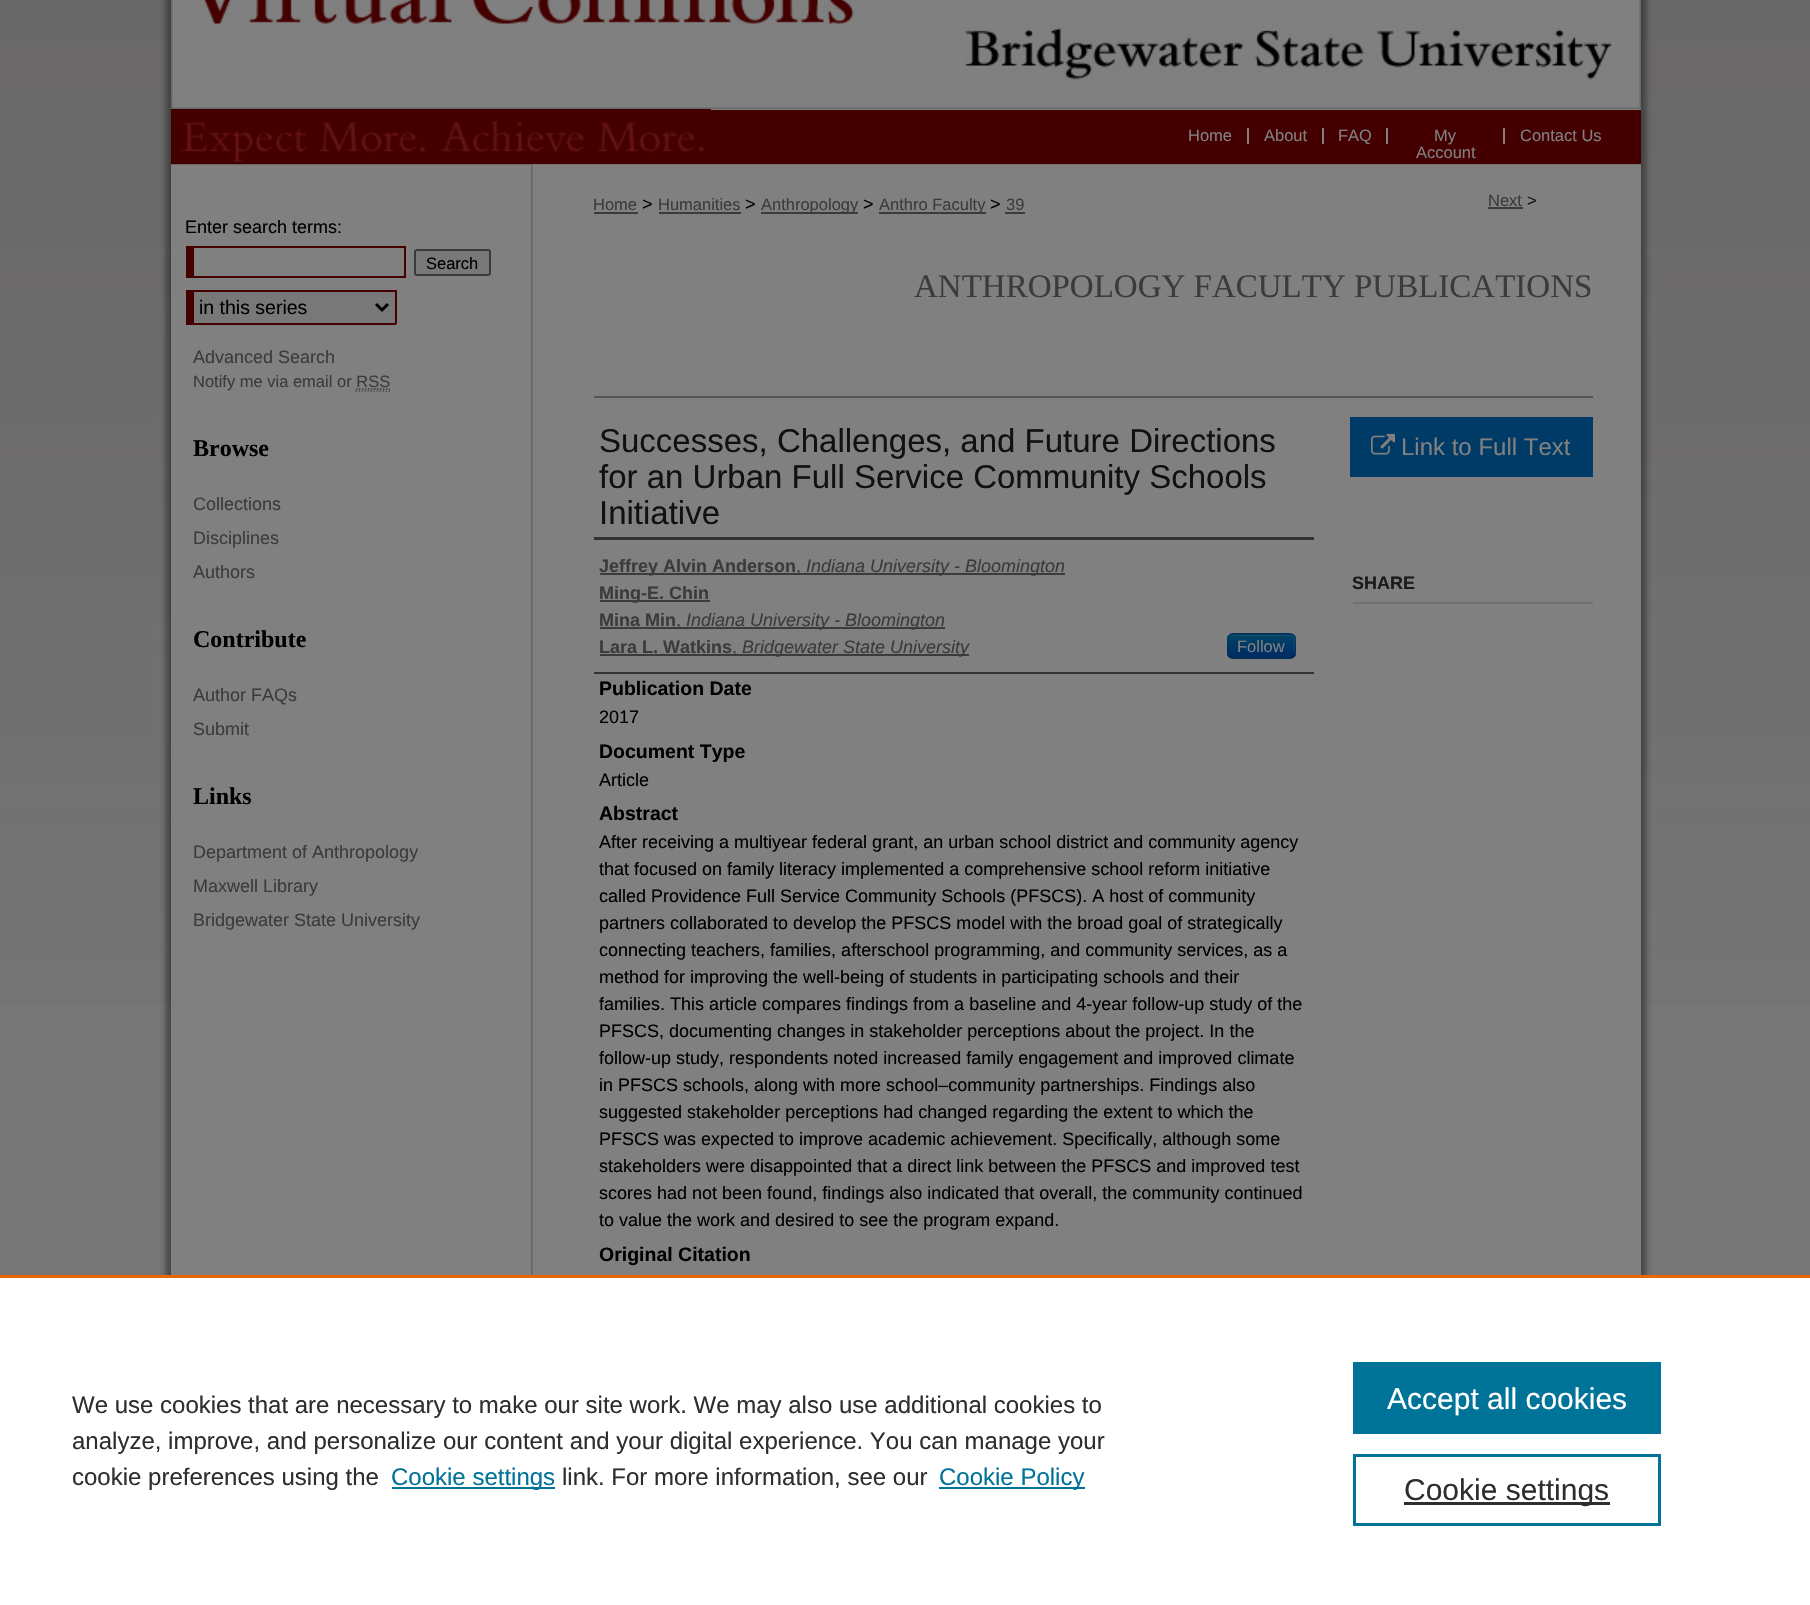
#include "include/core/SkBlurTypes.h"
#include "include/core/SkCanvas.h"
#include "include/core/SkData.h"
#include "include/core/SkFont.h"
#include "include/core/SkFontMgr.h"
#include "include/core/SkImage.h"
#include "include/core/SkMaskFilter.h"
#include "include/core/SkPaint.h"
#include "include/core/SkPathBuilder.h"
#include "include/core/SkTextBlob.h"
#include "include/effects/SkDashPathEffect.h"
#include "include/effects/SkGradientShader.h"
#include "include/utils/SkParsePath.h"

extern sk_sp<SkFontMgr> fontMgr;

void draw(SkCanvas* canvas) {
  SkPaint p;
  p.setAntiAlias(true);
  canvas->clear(SkColorSetRGB(118, 118, 118));
  canvas->drawImageRect(SkImages::DeferredFromEncodedData(SkData::MakeFromFileName("images/1.png")), SkRect::MakeLTRB(0, 0, 1810, 1003), SkSamplingOptions());
  p.setColor(SkColorSetARGB(128, 37, 37, 37));
  p.setMaskFilter(SkMaskFilter::MakeBlur(kNormal_SkBlurStyle, 3));
  canvas->drawRect(SkRect::MakeLTRB(171, -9, 1641, 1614), p);
  p.setMaskFilter(nullptr);
  p.setMaskFilter(SkMaskFilter::MakeBlur(kNormal_SkBlurStyle, 3));
  canvas->drawRect(SkRect::MakeLTRB(165, -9, 1635, 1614), p);
  p.setMaskFilter(nullptr);
  p.setMaskFilter(SkMaskFilter::MakeBlur(kNormal_SkBlurStyle, 3));
  canvas->drawRect(SkRect::MakeLTRB(177, -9, 1647, 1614), p);
  p.setMaskFilter(nullptr);
  p.setColor(SkColorSetRGB(128, 128, 128));
  canvas->drawRect(SkRect::MakeLTRB(711, 109, 1641, 110), p);
  canvas->drawImageRect(SkImages::DeferredFromEncodedData(SkData::MakeFromFileName("images/2.png")), SkRect::MakeLTRB(171, 0, 1641, 109), SkSamplingOptions());
  p.setColor(SkColorSetRGB(68, 0, 0));
  canvas->drawRect(SkRect::MakeLTRB(171, 110, 1641, 164), p);
  canvas->drawImageRect(SkImages::DeferredFromEncodedData(SkData::MakeFromFileName("images/3.png")), SkRect::MakeLTRB(171, 109, 711, 162), SkSamplingOptions());
  p.setColor(SkColorSetRGB(104, 103, 103));
  canvas->drawRect(SkRect::MakeLTRB(171, 164, 1641, 165), p);
  p.setColor(SkColorSetRGB(128, 128, 128));
  canvas->drawRect(SkRect::MakeLTRB(1247, 128, 1249, 144), p);
  canvas->drawRect(SkRect::MakeLTRB(1322, 128, 1324, 144), p);
  canvas->drawRect(SkRect::MakeLTRB(1386, 128, 1388, 144), p);
  canvas->drawRect(SkRect::MakeLTRB(1503, 128, 1505, 144), p);
  canvas->drawRect(SkRect::MakeLTRB(171, 165, 531, 1275), p);
  canvas->drawImageRect(SkImages::DeferredFromEncodedData(SkData::MakeFromFileName("images/4.png")), SkRect::MakeLTRB(531, 164, 1641, 1275), SkSamplingOptions());
  p.setColor(SkColorSetRGB(68, 0, 0));
  canvas->drawRect(SkRect::MakeLTRB(186, 246, 405, 248), p);
  canvas->drawRect(SkRect::MakeLTRB(404, 246, 406, 278), p);
  canvas->drawRect(SkRect::MakeLTRB(186, 276, 405, 278), p);
  canvas->drawRect(SkRect::MakeLTRB(186, 246, 194, 278), p);
  p.setColor(SkColorSetRGB(120, 120, 120));
  canvas->drawRoundRect(SkRect::MakeLTRB(415, 250, 490, 275), 2, 2, p);
  p.setStyle(SkPaint::kStroke_Style);
  p.setStrokeWidth(2);
  p.setColor(SkColorSetRGB(59, 59, 59));
  canvas->drawRoundRect(SkRect::MakeLTRB(415, 250, 490, 275), 2, 2, p);
  p.setStyle(SkPaint::kFill_Style);
  p.setColor(SkColorSetRGB(120, 120, 120));
  canvas->drawRect(SkRect::MakeLTRB(194, 292, 395, 323), p);
  p.setColor(SkColorSetRGB(68, 0, 0));
  canvas->drawRect(SkRect::MakeLTRB(186, 290, 396, 292), p);
  canvas->drawRect(SkRect::MakeLTRB(395, 290, 397, 324), p);
  canvas->drawRect(SkRect::MakeLTRB(186, 323, 396, 325), p);
  canvas->drawRect(SkRect::MakeLTRB(186, 290, 194, 324), p);
  p.setStyle(SkPaint::kStroke_Style);
  p.setStrokeWidth(3);
  p.setColor(SK_ColorBLACK);
  canvas->drawPath(SkPathBuilder().moveTo(376, 304).lineTo(382, 310).lineTo(388, 304).detach(), p);
  p.setStrokeWidth(1.5f);
  p.setColor(SkColorSetRGB(59, 59, 59));
  p.setPathEffect(SkDashPathEffect::Make({{1.5f, 1.5f}}, 0));
  canvas->drawPath(SkPathBuilder().moveTo(356, 389).lineTo(390, 389).detach(), p);
  p.setPathEffect(nullptr);
  p.setStyle(SkPaint::kFill_Style);
  canvas->drawRect(SkRect::MakeLTRB(594, 212, 638, 214), p);
  canvas->drawRect(SkRect::MakeLTRB(659, 212, 741, 214), p);
  canvas->drawRect(SkRect::MakeLTRB(761, 212, 858, 214), p);
  canvas->drawRect(SkRect::MakeLTRB(879, 212, 986, 214), p);
  canvas->drawRect(SkRect::MakeLTRB(1005, 212, 1025, 214), p);
  canvas->drawRect(SkRect::MakeLTRB(1488, 207, 1523, 209), p);
  p.setColor(SkColorSetRGB(85, 85, 85));
  canvas->drawRect(SkRect::MakeLTRB(594, 396, 1593, 398), p);
  p.setColor(SkColorSetRGB(51, 51, 51));
  canvas->drawRect(SkRect::MakeLTRB(594, 537, 1314, 540), p);
  canvas->drawRect(SkRect::MakeLTRB(594, 672, 1314, 674), p);
  p.setColor(SkColorSetRGB(59, 59, 59));
  canvas->drawRect(SkRect::MakeLTRB(600, 573, 1065, 575), p);
  canvas->drawRect(SkRect::MakeLTRB(600, 600, 710, 602), p);
  canvas->drawRect(SkRect::MakeLTRB(600, 627, 945, 629), p);
  canvas->drawRect(SkRect::MakeLTRB(600, 654, 969, 656), p);
  p.setColor(SkColorSetRGB(0, 58, 102));
  canvas->drawRoundRect(SkRect::MakeLTRB(1227, 633, 1296, 659), 6, 6, p);
  canvas->save();
  canvas->clipPath(SkPathBuilder().moveTo(1233, 633).lineTo(1290, 633).cubicTo(1293.5f, 633, 1296, 635.5f, 1296, 639).lineTo(1296, 653).cubicTo(1296, 656.5f, 1293.5f, 659, 1290, 659).lineTo(1233, 659).cubicTo(1229.5f, 659, 1227, 656.5f, 1227, 653).lineTo(1227, 639).cubicTo(1227, 635.5f, 1229.5f, 633, 1233, 633).close().detach(), true);
  {
    const SkColor colors[] = {SkColorSetRGB(0, 68, 102), SkColorSetRGB(0, 43, 102)};
    const float stops[] = {0, 1};
    const SkPoint ends[] = {{1262, 635}, {1262, 657}};
    p.setShader(SkGradientShader::MakeLinear(ends, colors, stops, 2, SkTileMode::kClamp));
    p.setAlpha(255);
  }
  canvas->drawRect(SkRect::MakeLTRB(1227, 635, 1296, 657), p);
  canvas->restore();
  p.setShader(nullptr);
  p.setColor(SkColorSetARGB(51, 128, 128, 128));
  canvas->drawPath(SkPathBuilder().moveTo(1233, 636).lineTo(1280, 636).cubicTo(1292, 636, 1294, 634, 1294, 645).lineTo(1294, 655).cubicTo(1295, 654, 1295, 653, 1295, 652).lineTo(1295, 640).cubicTo(1295, 637, 1293, 635, 1290, 635).lineTo(1234, 635).cubicTo(1232, 635, 1231, 636, 1230, 637).close().detach(), p);
  p.setStyle(SkPaint::kStroke_Style);
  p.setColor(SkColorSetARGB(64, 0, 0, 0));
  canvas->drawPath(SkPathBuilder().moveTo(1293.5f, 656).cubicTo(1292.5f, 657, 1291.5f, 658, 1290, 658).lineTo(1233, 658).cubicTo(1231.5f, 658, 1230.5f, 657, 1229.5f, 656).detach(), p);
  p.setColor(SkColorSetARGB(26, 0, 0, 0));
  canvas->drawPath(SkPathBuilder().moveTo(1229.5f, 656).cubicTo(1226.5f, 653.5f, 1228, 649, 1228, 646).cubicTo(1228, 632.5f, 1228.5f, 634, 1242.5f, 634).lineTo(1280.5f, 634).cubicTo(1294.5f, 634, 1295, 632.5f, 1295, 646).cubicTo(1295, 649, 1296.5f, 653.5f, 1293.5f, 656).detach(), p);
  p.setStyle(SkPaint::kFill_Style);
  p.setColor(SkColorSetRGB(0, 58, 102));
  canvas->drawRect(SkRect::MakeLTRB(1350, 417, 1593, 477), p);
  canvas->drawImageRect(SkImages::DeferredFromEncodedData(SkData::MakeFromFileName("images/5.png")), SkRect::MakeLTRB(1371, 433, 1395, 455), SkSamplingOptions());
  p.setColor(SkColorSetRGB(111, 111, 111));
  canvas->drawRect(SkRect::MakeLTRB(1353, 602, 1593, 604), p);
  p.setColor(SK_ColorWHITE);
  canvas->drawRect(SkRect::MakeLTRB(0, 1278, 1810, 1605), p);
  p.setColor(SkColorSetRGB(235, 101, 0));
  canvas->drawRect(SkRect::MakeLTRB(0, 1275, 1810, 1278), p);
  p.setColor(SkColorSetRGB(0, 115, 152));
  canvas->drawRect(SkRect::MakeLTRB(392, 1487, 555, 1489), p);
  canvas->drawRect(SkRect::MakeLTRB(939, 1487, 1085, 1489), p);
  canvas->drawRect(SkRect::MakeLTRB(1353, 1362, 1661, 1434), p);
  p.setStyle(SkPaint::kStroke_Style);
  p.setStrokeWidth(3);
  canvas->drawRect(SkRect::MakeLTRB(1354.5f, 1455.5f, 1659.5f, 1524.5f), p);
  p.setStyle(SkPaint::kFill_Style);
  p.setColor(SkColorSetRGB(46, 46, 46));
  canvas->drawRect(SkRect::MakeLTRB(1404, 1502, 1610, 1505), p);
  SkFont font1(fontMgr->matchFamilyStyle("Liberation Sans", SkFontStyle::Normal()), 16.5f);
  font1.setSubpixel(true);
  p.setColor(SkColorSetRGB(128, 128, 128));
  canvas->drawString("Home", 1188, 141, font1, p);
  canvas->drawString("About", 1264, 141, font1, p);
  canvas->drawString("FAQ", 1338, 141, font1, p);
  canvas->drawString("My", 1434, 141, font1, p);
  canvas->drawString("Account", 1416, 158, font1, p);
  canvas->drawString("Contact Us", 1520, 141, font1, p);
  SkFont font2(fontMgr->matchFamilyStyle("Liberation Sans", SkFontStyle::Normal()), 18);
  font2.setSubpixel(true);
  p.setColor(SK_ColorBLACK);
  canvas->drawString("Enter search terms:", 185, 233, font2, p);
  canvas->drawString("Search", 426, 269, font1, p);
  SkFont font3(fontMgr->matchFamilyStyle("Liberation Sans", SkFontStyle::Normal()), 19.5f);
  font3.setSubpixel(true);
  canvas->drawString("in this series", 199, 314, font3, p);
  p.setColor(SkColorSetRGB(59, 59, 59));
  canvas->drawString("Advanced Search", 193, 363, font2, p);
  canvas->drawString("Notify me via email or RSS", 193, 387, font1, p);
  p.setStyle(SkPaint::kStroke_Style);
  p.setStrokeWidth(1.5f);
  p.setColor(SkColorSetRGB(77, 77, 77));
  p.setPathEffect(SkDashPathEffect::Make({{1.5f, 1.5f}}, 0));
  canvas->drawPath(SkPathBuilder().moveTo(355.5f, 391).lineTo(390, 391).detach(), p);
  p.setPathEffect(nullptr);
  SkFont font4(fontMgr->matchFamilyStyle("Liberation Serif", SkFontStyle::Bold()), 24);
  font4.setSubpixel(true);
  p.setStyle(SkPaint::kFill_Style);
  p.setColor(SK_ColorBLACK);
  canvas->drawString("Browse", 193, 456, font4, p);
  p.setColor(SkColorSetRGB(59, 59, 59));
  canvas->drawString("Collections", 193, 510, font2, p);
  canvas->drawString("Disciplines", 193, 544, font2, p);
  canvas->drawString("Authors", 193, 578, font2, p);
  p.setColor(SK_ColorBLACK);
  canvas->drawString("Contribute", 193, 647, font4, p);
  p.setColor(SkColorSetRGB(59, 59, 59));
  canvas->drawString("Author FAQs", 193, 701, font2, p);
  canvas->drawString("Submit", 193, 735, font2, p);
  p.setColor(SK_ColorBLACK);
  canvas->drawString("Links", 193, 804, font4, p);
  p.setColor(SkColorSetRGB(59, 59, 59));
  canvas->drawString("Department of Anthropology", 193, 858, font2, p);
  canvas->drawString("Maxwell Library", 193, 892, font2, p);
  canvas->drawString("Bridgewater State University", 193, 926, font2, p);
  canvas->drawString("Home", 593, 210, font1, p);
  p.setColor(SK_ColorBLACK);
  canvas->drawString(">", 642, 210, font2, p);
  p.setColor(SkColorSetRGB(59, 59, 59));
  canvas->drawString("Humanities", 658, 210, font1, p);
  p.setColor(SK_ColorBLACK);
  canvas->drawString(">", 745, 210, font2, p);
  p.setColor(SkColorSetRGB(59, 59, 59));
  canvas->drawString("Anthropology", 761, 210, font1, p);
  p.setColor(SK_ColorBLACK);
  canvas->drawString(">", 863, 210, font2, p);
  p.setColor(SkColorSetRGB(59, 59, 59));
  canvas->drawString("Anthro Faculty", 879, 210, font1, p);
  p.setColor(SK_ColorBLACK);
  canvas->drawString(">", 990, 210, font2, p);
  p.setColor(SkColorSetRGB(59, 59, 59));
  canvas->drawString("39", 1006, 210, font1, p);
  canvas->drawString("Next", 1488, 206, font1, p);
  p.setColor(SkColorSetRGB(17, 17, 17));
  canvas->drawString(">", 1527, 206, font1, p);
  SkFont font5(fontMgr->matchFamilyStyle("Liberation Serif", SkFontStyle::Normal()), 33);
  font5.setSubpixel(true);
  p.setColor(SkColorSetRGB(59, 59, 59));
  canvas->drawString("ANTHROPOLOGY FACULTY PUBLICATIONS", 914, 297, font5, p);
  SkFont font6(fontMgr->matchFamilyStyle("Liberation Sans", SkFontStyle::Normal()), 33);
  font6.setSubpixel(true);
  p.setColor(SkColorSetRGB(17, 17, 17));
  canvas->drawString("Successes, Challenges, and Future Directions", 599, 452, font6, p);
  canvas->drawString("for an Urban Full Service Community Schools", 599, 488, font6, p);
  canvas->drawString("Initiative", 599, 524, font6, p);
  SkFont font7(fontMgr->matchFamilyStyle("Liberation Sans", SkFontStyle::Bold()), 18);
  font7.setSubpixel(true);
  p.setColor(SkColorSetRGB(59, 59, 59));
  canvas->drawString("Jeffrey Alvin Anderson", 599, 572, font7, p);
  canvas->drawString(",", 796, 572, font2, p);
  SkFont font8(fontMgr->matchFamilyStyle("Liberation Sans", SkFontStyle::Italic()), 18);
  font8.setSubpixel(true);
  canvas->drawString("Indiana University - Bloomington", 806, 572, font8, p);
  canvas->drawString("Ming-E. Chin", 599, 599, font7, p);
  canvas->drawString("Mina Min", 599, 626, font7, p);
  canvas->drawString(",", 676, 626, font2, p);
  canvas->drawString("Indiana University - Bloomington", 686, 626, font8, p);
  canvas->drawString("Lara L. Watkins", 599, 653, font7, p);
  canvas->drawString(",", 732, 653, font2, p);
  canvas->drawString("Bridgewater State University", 742, 653, font8, p);
  p.setColor(SkColorSetRGB(128, 128, 128));
  canvas->drawString("Follow", 1237, 652, font1, p);
  SkFont font9(fontMgr->matchFamilyStyle("Liberation Sans", SkFontStyle::Bold()), 19.5f);
  font9.setSubpixel(true);
  p.setColor(SK_ColorBLACK);
  canvas->drawString("Publication Date", 599, 695, font9, p);
  canvas->drawString("2017", 599, 723, font2, p);
  canvas->drawString("Document Type", 599, 758, font9, p);
  canvas->drawString("Article", 599, 786, font2, p);
  canvas->drawString("Abstract", 599, 820, font9, p);
  canvas->drawString("After receiving a multiyear federal grant, an urban school district and community agency", 599, 848, font2, p);
  canvas->drawString("that focused on family literacy implemented a comprehensive school reform initiative", 599, 875, font2, p);
  canvas->drawString("called Providence Full Service Community Schools (PFSCS). A host of community", 599, 902, font2, p);
  canvas->drawString("partners collaborated to develop the PFSCS model with the broad goal of strategically", 599, 929, font2, p);
  canvas->drawString("connecting teachers, families, afterschool programming, and community services, as a", 599, 956, font2, p);
  canvas->drawString("method for improving the well-being of students in participating schools and their", 599, 983, font2, p);
  canvas->drawString("families. This article compares findings from a baseline and 4-year follow-up study of the", 599, 1010, font2, p);
  canvas->drawString("PFSCS, documenting changes in stakeholder perceptions about the project. In the", 599, 1037, font2, p);
  canvas->drawString("follow-up study, respondents noted increased family engagement and improved climate", 599, 1064, font2, p);
  canvas->drawString("in PFSCS schools, along with more school–community partnerships. Findings also", 599, 1091, font2, p);
  canvas->drawString("suggested stakeholder perceptions had changed regarding the extent to which the", 599, 1118, font2, p);
  canvas->drawString("PFSCS was expected to improve academic achievement. Specifically, although some", 599, 1145, font2, p);
  canvas->drawString("stakeholders were disappointed that a direct link between the PFSCS and improved test", 599, 1172, font2, p);
  canvas->drawString("scores had not been found, findings also indicated that overall, the community continued", 599, 1199, font2, p);
  canvas->drawString("to value the work and desired to see the program expand.", 599, 1226, font2, p);
  canvas->drawString("Original Citation", 599, 1261, font9, p);
  SkFont font10(fontMgr->matchFamilyStyle("Liberation Sans", SkFontStyle::Normal()), 24);
  font10.setSubpixel(true);
  p.setColor(SkColorSetRGB(128, 128, 128));
  canvas->drawString("Link to Full Text", 1401, 455, font10, p);
  p.setColor(SkColorSetRGB(26, 26, 26));
  canvas->drawString("SHARE", 1352, 589, font7, p);
  p.setColor(SkColorSetRGB(46, 46, 46));
  canvas->drawString("We use cookies that are necessary to make our site work. We may also use additional cookies to", 72, 1413, font10, p);
  canvas->drawString("analyze, improve, and personalize our content and your digital experience. You can manage your", 72, 1449, font10, p);
  canvas->drawString("cookie preferences using the", 72, 1485, font10, p);
  p.setColor(SkColorSetRGB(0, 115, 152));
  canvas->drawString("Cookie settings", 391, 1485, font10, p);
  p.setColor(SkColorSetRGB(46, 46, 46));
  canvas->drawString("link. For more information, see our", 562, 1485, font10, p);
  p.setColor(SkColorSetRGB(0, 115, 152));
  canvas->drawString("Cookie Policy", 939, 1485, font10, p);
  SkFont font11(fontMgr->matchFamilyStyle("Liberation Sans", SkFontStyle::Normal()), 30);
  font11.setSubpixel(true);
  p.setColor(SK_ColorWHITE);
  canvas->drawString("Accept all cookies", 1387, 1409, font11, p);
  p.setColor(SkColorSetRGB(46, 46, 46));
  canvas->drawString("Cookie settings", 1404, 1500, font11, p);
}
